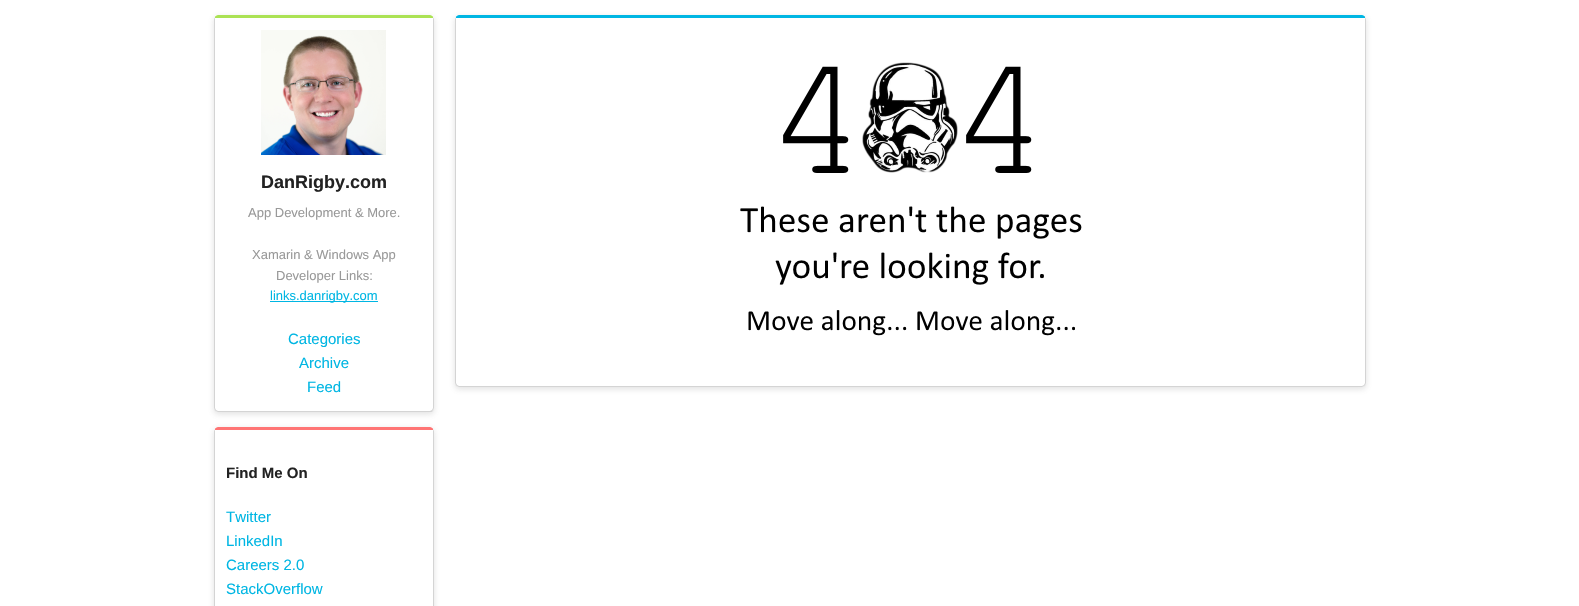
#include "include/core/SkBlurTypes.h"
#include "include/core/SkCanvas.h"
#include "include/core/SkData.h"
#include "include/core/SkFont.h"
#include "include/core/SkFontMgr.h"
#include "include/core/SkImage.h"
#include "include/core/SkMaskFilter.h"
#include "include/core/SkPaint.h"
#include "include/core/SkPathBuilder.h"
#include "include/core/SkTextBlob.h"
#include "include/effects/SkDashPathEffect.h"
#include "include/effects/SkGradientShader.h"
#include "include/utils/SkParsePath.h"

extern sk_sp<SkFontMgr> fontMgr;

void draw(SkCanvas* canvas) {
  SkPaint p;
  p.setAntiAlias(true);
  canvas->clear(SK_ColorWHITE);
  canvas->save();
  canvas->clipPath(SkPathBuilder(SkPathFillType::kEvenOdd).moveTo(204, 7).lineTo(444, 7).lineTo(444, 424).lineTo(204, 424).close().moveTo(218, 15).lineTo(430, 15).cubicTo(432, 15, 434, 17, 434, 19).lineTo(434, 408).cubicTo(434, 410, 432, 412, 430, 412).lineTo(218, 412).cubicTo(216, 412, 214, 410, 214, 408).lineTo(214, 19).cubicTo(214, 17, 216, 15, 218, 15).close().detach(), true);
  p.setColor(SkColorSetARGB(51, 100, 100, 100));
  p.setMaskFilter(SkMaskFilter::MakeBlur(kNormal_SkBlurStyle, 3));
  canvas->drawRoundRect(SkRect::MakeLTRB(214, 17, 434, 414), 4, 4, p);
  p.setMaskFilter(nullptr);
  canvas->restore();
  p.setColor(SkColorSetRGB(171, 226, 84));
  canvas->drawPath(SkPathBuilder().moveTo(218, 15).cubicTo(217, 15, 215, 16, 215, 17).lineTo(215, 18).lineTo(218, 18).lineTo(430, 18).lineTo(433, 18).lineTo(433, 17).cubicTo(433, 16, 431, 15, 430, 15).close().detach(), p);
  p.setColor(SkColorSetRGB(212, 212, 212));
  canvas->drawPath(SkPathBuilder().moveTo(434, 408).lineTo(434, 19).lineTo(433, 17).lineTo(433, 18).lineTo(433, 408).lineTo(432, 410).lineTo(433, 411).close().detach(), p);
  canvas->drawPath(SkPathBuilder().moveTo(218, 412).lineTo(430, 412).cubicTo(431, 412, 432, 412, 433, 411).lineTo(432, 410).lineTo(430, 411).lineTo(218, 411).lineTo(216, 410).lineTo(215, 411).close().detach(), p);
  canvas->drawPath(SkPathBuilder().moveTo(214, 19).lineTo(214, 408).lineTo(215, 411).lineTo(216, 410).lineTo(215, 408).lineTo(215, 18).lineTo(215, 17).close().detach(), p);
  canvas->drawImageRect(SkImages::DeferredFromEncodedData(SkData::MakeFromFileName("images/1.png")), SkRect::MakeLTRB(261, 30, 386, 155), SkSamplingOptions());
  p.setColor(SkColorSetRGB(0, 182, 227));
  canvas->drawRect(SkRect::MakeLTRB(270, 301, 378, 302), p);
  canvas->save();
  canvas->clipPath(SkPathBuilder(SkPathFillType::kEvenOdd).moveTo(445, 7).lineTo(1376, 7).lineTo(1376, 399).lineTo(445, 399).close().moveTo(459, 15).lineTo(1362, 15).cubicTo(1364, 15, 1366, 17, 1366, 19).lineTo(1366, 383).cubicTo(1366, 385, 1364, 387, 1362, 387).lineTo(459, 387).cubicTo(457, 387, 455, 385, 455, 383).lineTo(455, 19).cubicTo(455, 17, 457, 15, 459, 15).close().detach(), true);
  p.setColor(SkColorSetARGB(51, 100, 100, 100));
  p.setMaskFilter(SkMaskFilter::MakeBlur(kNormal_SkBlurStyle, 3));
  canvas->drawRoundRect(SkRect::MakeLTRB(455, 17, 1366, 389), 4, 4, p);
  p.setMaskFilter(nullptr);
  canvas->restore();
  p.setColor(SkColorSetRGB(0, 182, 227));
  canvas->drawPath(SkPathBuilder().moveTo(459, 15).cubicTo(458, 15, 456, 16, 456, 17).lineTo(456, 18).lineTo(459, 18).lineTo(1362, 18).lineTo(1365, 18).lineTo(1365, 17).cubicTo(1365, 16, 1363, 15, 1362, 15).close().detach(), p);
  p.setColor(SkColorSetRGB(212, 212, 212));
  canvas->drawPath(SkPathBuilder().moveTo(1366, 383).lineTo(1366, 19).lineTo(1365, 17).lineTo(1365, 18).lineTo(1365, 383).lineTo(1364, 385).lineTo(1365, 386).close().detach(), p);
  canvas->drawPath(SkPathBuilder().moveTo(459, 387).lineTo(1362, 387).lineTo(1365, 386).lineTo(1364, 385).lineTo(1362, 386).lineTo(459, 386).lineTo(457, 385).lineTo(456, 386).close().detach(), p);
  canvas->drawPath(SkPathBuilder().moveTo(455, 19).lineTo(455, 383).lineTo(456, 386).lineTo(457, 385).lineTo(456, 383).lineTo(456, 18).lineTo(456, 17).close().detach(), p);
  canvas->drawImageRect(SkImages::DeferredFromEncodedData(SkData::MakeFromFileName("images/2.png")), SkRect::MakeLTRB(740, 62, 1082, 336), SkSamplingOptions());
  canvas->save();
  canvas->clipPath(SkPathBuilder(SkPathFillType::kEvenOdd).moveTo(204, 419).lineTo(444, 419).lineTo(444, 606).lineTo(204, 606).close().moveTo(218, 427).lineTo(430, 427).cubicTo(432, 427, 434, 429, 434, 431).lineTo(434, 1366).cubicTo(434, 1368, 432, 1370, 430, 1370).lineTo(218, 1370).cubicTo(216, 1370, 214, 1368, 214, 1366).lineTo(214, 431).cubicTo(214, 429, 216, 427, 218, 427).close().detach(), true);
  p.setColor(SkColorSetARGB(51, 100, 100, 100));
  p.setMaskFilter(SkMaskFilter::MakeBlur(kNormal_SkBlurStyle, 3));
  canvas->drawRoundRect(SkRect::MakeLTRB(214, 429, 434, 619), 4, 4, p);
  p.setMaskFilter(nullptr);
  canvas->restore();
  p.setColor(SkColorSetRGB(255, 117, 117));
  canvas->drawPath(SkPathBuilder().moveTo(218, 427).cubicTo(217, 427, 215, 428, 215, 429).lineTo(215, 430).lineTo(218, 430).lineTo(430, 430).lineTo(433, 430).lineTo(433, 429).cubicTo(433, 428, 431, 427, 430, 427).close().detach(), p);
  p.setColor(SkColorSetRGB(212, 212, 212));
  canvas->drawPath(SkPathBuilder().moveTo(434, 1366).lineTo(434, 431).lineTo(433, 429).lineTo(433, 430).lineTo(433, 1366).lineTo(432, 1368).lineTo(433, 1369).close().detach(), p);
  canvas->drawPath(SkPathBuilder().moveTo(214, 431).lineTo(214, 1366).lineTo(215, 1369).lineTo(216, 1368).lineTo(215, 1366).lineTo(215, 430).lineTo(215, 429).close().detach(), p);
  SkFont font1(fontMgr->matchFamilyStyle("Liberation Sans", SkFontStyle::Bold()), 18);
  font1.setSubpixel(true);
  p.setColor(SkColorSetRGB(34, 34, 34));
  canvas->drawString("DanRigby.com", 261, 188, font1, p);
  SkFont font2(fontMgr->matchFamilyStyle("Liberation Sans", SkFontStyle::Normal()), 13);
  font2.setSubpixel(true);
  p.setColor(SkColorSetRGB(153, 153, 153));
  canvas->drawString("App Development & More.", 248, 217, font2, p);
  canvas->drawString("Xamarin & Windows App", 252, 259, font2, p);
  canvas->drawString("Developer Links:", 276, 280, font2, p);
  p.setColor(SkColorSetRGB(0, 182, 227));
  canvas->drawString("links.danrigby.com", 270, 300, font2, p);
  SkFont font3(fontMgr->matchFamilyStyle("Liberation Sans", SkFontStyle::Normal()), 15);
  font3.setSubpixel(true);
  canvas->drawString("Categories", 288, 344, font3, p);
  canvas->drawString("Archive", 299, 368, font3, p);
  canvas->drawString("Feed", 307, 392, font3, p);
  SkFont font4(fontMgr->matchFamilyStyle("Liberation Sans", SkFontStyle::Bold()), 15);
  font4.setSubpixel(true);
  p.setColor(SkColorSetRGB(34, 34, 34));
  canvas->drawString("Find Me On", 226, 478, font4, p);
  p.setColor(SkColorSetRGB(0, 182, 227));
  canvas->drawString("Twitter", 226, 522, font3, p);
  canvas->drawString("LinkedIn", 226, 546, font3, p);
  canvas->drawString("Careers 2.0", 226, 570, font3, p);
  canvas->drawString("StackOverflow", 226, 594, font3, p);
}
